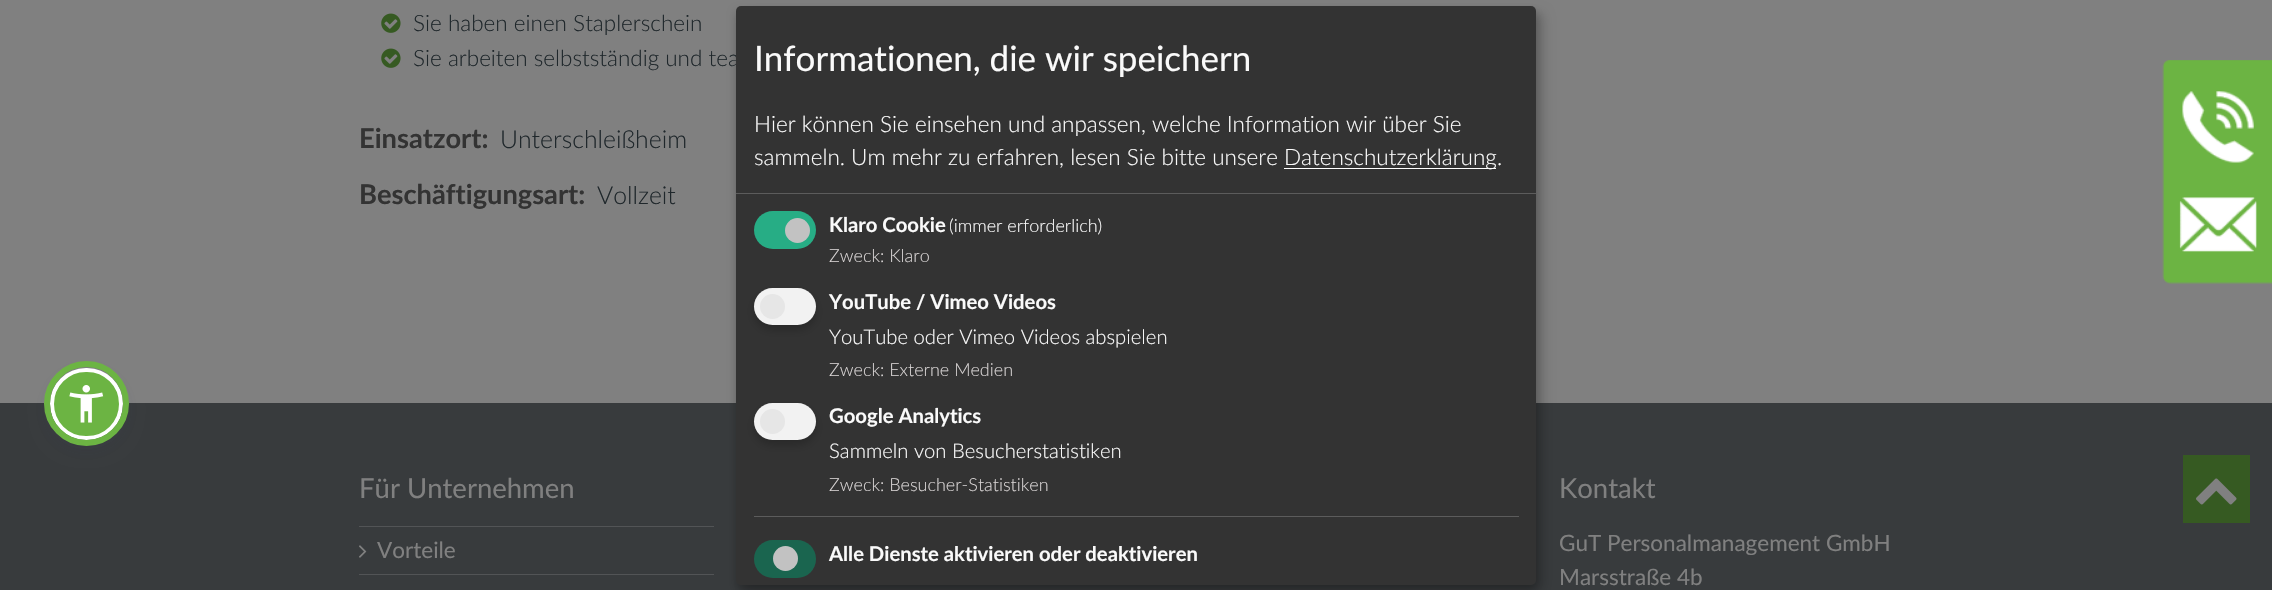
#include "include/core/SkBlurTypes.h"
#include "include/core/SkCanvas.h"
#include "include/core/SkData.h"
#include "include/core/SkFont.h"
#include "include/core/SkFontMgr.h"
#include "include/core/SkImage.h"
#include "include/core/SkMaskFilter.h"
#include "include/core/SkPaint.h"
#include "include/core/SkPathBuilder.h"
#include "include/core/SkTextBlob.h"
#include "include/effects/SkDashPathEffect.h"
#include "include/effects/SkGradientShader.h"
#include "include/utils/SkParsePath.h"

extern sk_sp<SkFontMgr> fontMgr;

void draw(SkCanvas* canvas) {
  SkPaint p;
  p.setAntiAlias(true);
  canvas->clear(SkColorSetRGB(128, 128, 128));
  p.setColor(SkColorSetRGB(56, 59, 61));
  canvas->drawRect(SkRect::MakeLTRB(0, 403, 2272, 590), p);
  p.setColor(SkColorSetARGB(51, 93, 100, 148));
  p.setMaskFilter(SkMaskFilter::MakeBlur(kNormal_SkBlurStyle, 2.5f));
  canvas->drawRoundRect(SkRect::MakeLTRB(50, 370, 123, 443), 36.5f, 36.5f, p);
  p.setMaskFilter(nullptr);
  p.setColor(SkColorSetARGB(38, 37, 44, 97));
  p.setMaskFilter(SkMaskFilter::MakeBlur(kNormal_SkBlurStyle, 9.5f));
  canvas->drawRoundRect(SkRect::MakeLTRB(50, 374, 123, 446), 36, 36, p);
  p.setMaskFilter(nullptr);
  p.setColor(SkColorSetRGB(108, 180, 67));
  canvas->drawRoundRect(SkRect::MakeLTRB(52, 370, 121, 438), 34, 34, p);
  p.setStyle(SkPaint::kStroke_Style);
  p.setStrokeWidth(4);
  p.setColor(SK_ColorWHITE);
  canvas->drawRoundRect(SkRect::MakeLTRB(52, 370, 121, 438), 34, 34, p);
  p.setStrokeWidth(6);
  p.setColor(SkColorSetRGB(108, 180, 67));
  canvas->drawCircle(86.5f, 403.5f, 39.5f, p);
  canvas->drawImageRect(SkImages::DeferredFromEncodedData(SkData::MakeFromFileName("images/1.png")), SkRect::MakeLTRB(69, 385, 104, 423), SkSamplingOptions());
  canvas->drawImageRect(SkImages::DeferredFromEncodedData(SkData::MakeFromFileName("images/2.png")), SkRect::MakeLTRB(381, 13, 401, 33), SkSamplingOptions());
  canvas->drawImageRect(SkImages::DeferredFromEncodedData(SkData::MakeFromFileName("images/2.png")), SkRect::MakeLTRB(381, 48, 401, 68), SkSamplingOptions());
  canvas->drawImageRect(SkImages::DeferredFromEncodedData(SkData::MakeFromFileName("images/3.png")), SkRect::MakeLTRB(2162, 60, 2272, 284), SkSamplingOptions());
  p.setStyle(SkPaint::kFill_Style);
  p.setColor(SkColorSetARGB(48, 0, 0, 0));
  p.setMaskFilter(SkMaskFilter::MakeBlur(kNormal_SkBlurStyle, 6));
  canvas->drawRoundRect(SkRect::MakeLTRB(743, 13, 1543, 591), 5, 5, p);
  p.setMaskFilter(nullptr);
  p.setColor(SkColorSetARGB(51, 0, 0, 0));
  p.setMaskFilter(SkMaskFilter::MakeBlur(kNormal_SkBlurStyle, 4));
  canvas->drawRoundRect(SkRect::MakeLTRB(736, 11, 1536, 590), 5, 5, p);
  p.setMaskFilter(nullptr);
  p.setColor(SkColorSetRGB(82, 84, 86));
  canvas->drawRect(SkRect::MakeLTRB(359, 526, 714, 527), p);
  canvas->drawImageRect(SkImages::DeferredFromEncodedData(SkData::MakeFromFileName("images/4.png")), SkRect::MakeLTRB(359, 545, 367, 558), SkSamplingOptions());
  canvas->drawRect(SkRect::MakeLTRB(359, 574, 714, 575), p);
  p.setColor(SkColorSetRGB(54, 90, 34));
  canvas->drawRect(SkRect::MakeLTRB(2183, 455, 2250, 523), p);
  canvas->drawImageRect(SkImages::DeferredFromEncodedData(SkData::MakeFromFileName("images/5.png")), SkRect::MakeLTRB(2196, 478, 2237, 505), SkSamplingOptions());
  SkFont font1(fontMgr->matchFamilyStyle("Lato", SkFontStyle(300, SkFontStyle::kNormal_Width, SkFontStyle::kUpright_Slant)), 22.5f);
  font1.setSubpixel(true);
  p.setColor(SkColorSetRGB(31, 39, 43));
  canvas->drawString("Sie haben einen Staplerschein", 413, 31, font1, p);
  canvas->drawString("Sie arbeiten selbstständig und tea", 413, 66, font1, p);
  SkFont font2(fontMgr->matchFamilyStyle("Lato", SkFontStyle::Bold()), 27.25f);
  font2.setSubpixel(true);
  p.setColor(SkColorSetRGB(51, 51, 51));
  canvas->drawString("Einsatzort:", 359, 148, font2, p);
  SkFont font3(fontMgr->matchFamilyStyle("Lato", SkFontStyle(300, SkFontStyle::kNormal_Width, SkFontStyle::kUpright_Slant)), 24.75f);
  font3.setSubpixel(true);
  p.setColor(SkColorSetRGB(31, 39, 43));
  canvas->drawString("Unterschleißheim", 500, 148, font3, p);
  p.setColor(SkColorSetRGB(51, 51, 51));
  canvas->drawString("Beschäftigungsart:", 359, 204, font2, p);
  p.setColor(SkColorSetRGB(31, 39, 43));
  canvas->drawString("Vollzeit", 597, 204, font3, p);
  p.setColor(SkColorSetRGB(51, 51, 51));
  canvas->drawRoundRect(SkRect::MakeLTRB(736, 6, 1536, 585), 5, 5, p);
  p.setColor(SkColorSetRGB(92, 92, 92));
  canvas->drawRect(SkRect::MakeLTRB(736, 193, 1536, 194), p);
  SkFont font4(fontMgr->matchFamilyStyle("Lato", SkFontStyle::Normal()), 35);
  font4.setSubpixel(true);
  p.setColor(SkColorSetRGB(250, 250, 250));
  canvas->drawString("Informationen, die wir speichern", 754, 71, font4, p);
  canvas->drawString("Hier können Sie einsehen und anpassen, welche Information wir über Sie", 754, 132, font1, p);
  canvas->drawString("sammeln. Um mehr zu erfahren, lesen Sie bitte unsere", 754, 165, font1, p);
  canvas->drawString(".", 1497, 165, font1, p);
  p.setColor(SK_ColorWHITE);
  canvas->drawRect(SkRect::MakeLTRB(1284, 168, 1496, 169), p);
  p.setColor(SkColorSetRGB(250, 250, 250));
  canvas->drawString("Datenschutzerklärung", 1284, 165, font1, p);
  p.setColor(SkColorSetRGB(39, 173, 133));
  canvas->drawRoundRect(SkRect::MakeLTRB(754, 211, 816, 249), 19, 19, p);
  p.setColor(SkColorSetRGB(194, 194, 194));
  canvas->drawCircle(797.5f, 230.5f, 12.5f, p);
  SkFont font5(fontMgr->matchFamilyStyle("Lato", SkFontStyle::Bold()), 20.25f);
  font5.setSubpixel(true);
  p.setColor(SkColorSetRGB(250, 250, 250));
  canvas->drawString("Klaro Cookie", 829, 232, font5, p);
  SkFont font6(fontMgr->matchFamilyStyle("Lato", SkFontStyle(300, SkFontStyle::kNormal_Width, SkFontStyle::kUpright_Slant)), 18);
  font6.setSubpixel(true);
  canvas->drawString("(immer erforderlich)", 949, 232, font6, p);
  p.setColor(SkColorSetRGB(216, 212, 212));
  canvas->drawString("Zweck: Klaro", 829, 262, font6, p);
  p.setColor(SkColorSetARGB(51, 0, 0, 0));
  p.setMaskFilter(SkMaskFilter::MakeBlur(kNormal_SkBlurStyle, 4));
  canvas->drawRoundRect(SkRect::MakeLTRB(754, 293, 816, 330), 18.5f, 18.5f, p);
  p.setMaskFilter(nullptr);
  p.setColor(SkColorSetRGB(242, 242, 242));
  canvas->drawRoundRect(SkRect::MakeLTRB(754, 288, 816, 325), 18.5f, 18.5f, p);
  p.setColor(SkColorSetRGB(230, 230, 230));
  canvas->drawCircle(772.5f, 306.5f, 12.5f, p);
  p.setColor(SkColorSetRGB(250, 250, 250));
  canvas->drawString("YouTube / Vimeo Videos", 829, 309, font5, p);
  SkFont font7(fontMgr->matchFamilyStyle("Lato", SkFontStyle(300, SkFontStyle::kNormal_Width, SkFontStyle::kUpright_Slant)), 20.25f);
  font7.setSubpixel(true);
  canvas->drawString("YouTube oder Vimeo Videos abspielen", 829, 344, font7, p);
  p.setColor(SkColorSetRGB(216, 212, 212));
  canvas->drawString("Zweck: Externe Medien", 829, 376, font6, p);
  p.setColor(SkColorSetARGB(51, 0, 0, 0));
  p.setMaskFilter(SkMaskFilter::MakeBlur(kNormal_SkBlurStyle, 4));
  canvas->drawRoundRect(SkRect::MakeLTRB(754, 408, 816, 445), 18.5f, 18.5f, p);
  p.setMaskFilter(nullptr);
  p.setColor(SkColorSetRGB(242, 242, 242));
  canvas->drawRoundRect(SkRect::MakeLTRB(754, 403, 816, 440), 18.5f, 18.5f, p);
  p.setColor(SkColorSetRGB(230, 230, 230));
  canvas->drawCircle(772.5f, 421.5f, 12.5f, p);
  p.setColor(SkColorSetRGB(250, 250, 250));
  canvas->drawString("Google Analytics", 829, 423, font5, p);
  canvas->drawString("Sammeln von Besucherstatistiken", 829, 458, font7, p);
  p.setColor(SkColorSetRGB(216, 212, 212));
  canvas->drawString("Zweck: Besucher-Statistiken", 829, 491, font6, p);
  p.setColor(SkColorSetRGB(92, 92, 92));
  canvas->drawRect(SkRect::MakeLTRB(754, 516, 1519, 517), p);
  p.setColor(SkColorSetRGB(26, 101, 79));
  canvas->drawRoundRect(SkRect::MakeLTRB(754, 540, 816, 578), 19, 19, p);
  p.setColor(SkColorSetRGB(194, 194, 194));
  canvas->drawCircle(785.5f, 558.5f, 12.5f, p);
  p.setColor(SkColorSetRGB(250, 250, 250));
  canvas->drawString("Alle Dienste aktivieren oder deaktivieren", 829, 561, font5, p);
  SkFont font8(fontMgr->matchFamilyStyle("Lato", SkFontStyle::Normal()), 27.5f);
  font8.setSubpixel(true);
  p.setColor(SkColorSetRGB(128, 128, 128));
  canvas->drawString("Für Unternehmen", 359, 498, font8, p);
  SkFont font9(fontMgr->matchFamilyStyle("Lato", SkFontStyle::Normal()), 22.5f);
  font9.setSubpixel(true);
  canvas->drawString("Vorteile", 377, 558, font9, p);
  canvas->drawString("Kontakt", 1559, 498, font8, p);
  canvas->drawString("GuT Personalmanagement GmbH", 1559, 551, font9, p);
  canvas->drawString("Marsstraße 4b", 1559, 585, font9, p);
}
